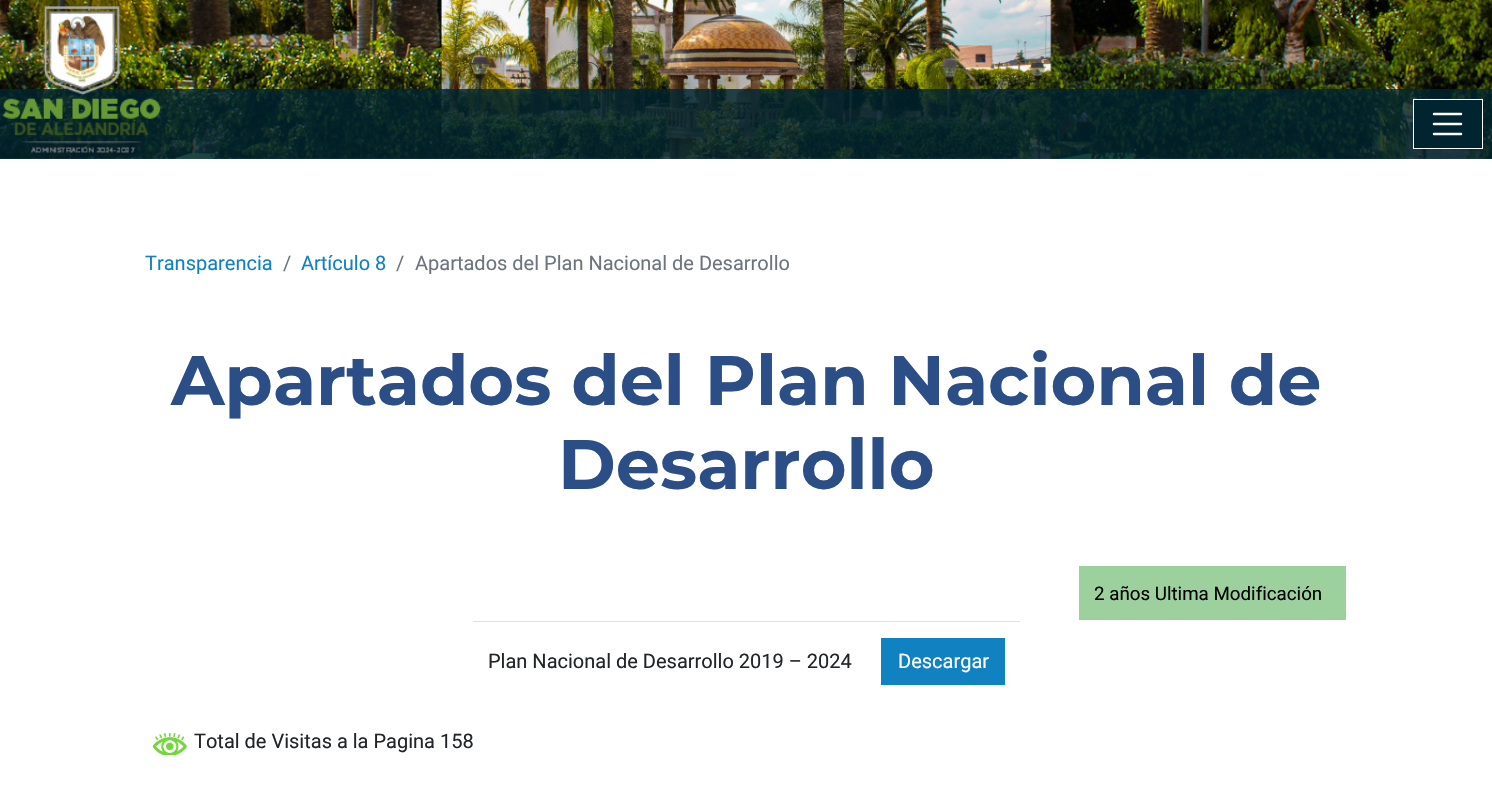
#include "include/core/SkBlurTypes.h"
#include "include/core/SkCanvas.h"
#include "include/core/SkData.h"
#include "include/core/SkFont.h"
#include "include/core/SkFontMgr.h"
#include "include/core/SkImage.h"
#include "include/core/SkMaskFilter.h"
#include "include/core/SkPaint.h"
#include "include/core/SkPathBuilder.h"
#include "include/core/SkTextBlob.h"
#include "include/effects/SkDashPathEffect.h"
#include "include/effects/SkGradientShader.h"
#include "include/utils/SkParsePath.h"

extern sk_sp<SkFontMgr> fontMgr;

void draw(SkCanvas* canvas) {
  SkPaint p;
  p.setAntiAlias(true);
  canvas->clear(SK_ColorWHITE);
  canvas->drawImageRect(SkImages::DeferredFromEncodedData(SkData::MakeFromFileName("images/1.png")), SkRect::MakeLTRB(0, 0, 1492, 159), SkSamplingOptions());
  p.setColor(SkColorSetARGB(204, 0, 36, 48));
  canvas->drawRect(SkRect::MakeLTRB(0, 89, 1492, 159), p);
  canvas->drawImageRect(SkImages::DeferredFromEncodedData(SkData::MakeFromFileName("images/2.png")), SkRect::MakeLTRB(2, 6, 161, 153), SkSamplingOptions());
  p.setColor(SkColorSetRGB(0, 36, 48));
  canvas->drawRect(SkRect::MakeLTRB(1413.5f, 99.5f, 1482.5f, 148.5f), p);
  p.setStyle(SkPaint::kStroke_Style);
  p.setStrokeWidth(1);
  p.setColor(SK_ColorWHITE);
  canvas->drawRect(SkRect::MakeLTRB(1413.5f, 99.5f, 1482.5f, 148.5f), p);
  p.setStrokeWidth(2.5f);
  p.setStrokeCap(SkPaint::kRound_Cap);
  canvas->drawPath(SkPathBuilder().moveTo(1434, 114).lineTo(1461, 114).moveTo(1434, 124).lineTo(1461, 124).moveTo(1434, 134).lineTo(1461, 134).detach(), p);
  p.setStyle(SkPaint::kFill_Style);
  p.setColor(SkColorSetRGB(156, 209, 158));
  canvas->drawRect(SkRect::MakeLTRB(1079, 566, 1346, 620), p);
  p.setColor(SkColorSetRGB(222, 226, 230));
  canvas->drawRect(SkRect::MakeLTRB(473, 621, 1020, 622), p);
  p.setColor(SkColorSetRGB(16, 130, 193));
  canvas->drawRect(SkRect::MakeLTRB(881, 638, 1005, 685), p);
  canvas->drawImageRect(SkImages::DeferredFromEncodedData(SkData::MakeFromFileName("images/3.png")), SkRect::MakeLTRB(152, 733, 187, 755), SkSamplingOptions());
  SkFont font1(fontMgr->matchFamilyStyle("Roboto", SkFontStyle::Normal()), 20);
  font1.setSubpixel(true);
  canvas->drawString("Transparencia", 145, 270, font1, p);
  p.setColor(SkColorSetRGB(108, 117, 125));
  canvas->drawString("/", 283, 270, font1, p);
  p.setColor(SkColorSetRGB(16, 130, 193));
  canvas->drawString("Artículo 8", 301, 270, font1, p);
  p.setColor(SkColorSetRGB(108, 117, 125));
  canvas->drawString("/", 396, 270, font1, p);
  canvas->drawString("Apartados del Plan Nacional de Desarrollo", 415, 270, font1, p);
  SkFont font2(fontMgr->matchFamilyStyle("Montserrat", SkFontStyle::Bold()), 70);
  font2.setSubpixel(true);
  p.setColor(SkColorSetRGB(43, 78, 134));
  canvas->drawString("Apartados del Plan Nacional de", 171, 405, font2, p);
  canvas->drawString("Desarrollo", 558, 489, font2, p);
  SkFont font3(fontMgr->matchFamilyStyle("Roboto", SkFontStyle::Normal()), 18.75f);
  font3.setSubpixel(true);
  p.setColor(SK_ColorBLACK);
  canvas->drawString("2 años Ultima Modificación", 1094, 600, font3, p);
  p.setColor(SkColorSetRGB(33, 37, 41));
  canvas->drawString("Plan Nacional de Desarrollo 2019 – 2024", 488, 668, font1, p);
  p.setColor(SK_ColorWHITE);
  canvas->drawString("Descargar", 898, 668, font1, p);
  p.setColor(SkColorSetRGB(33, 37, 41));
  canvas->drawString("Total de Visitas a la Pagina 158", 194, 748, font1, p);
}
